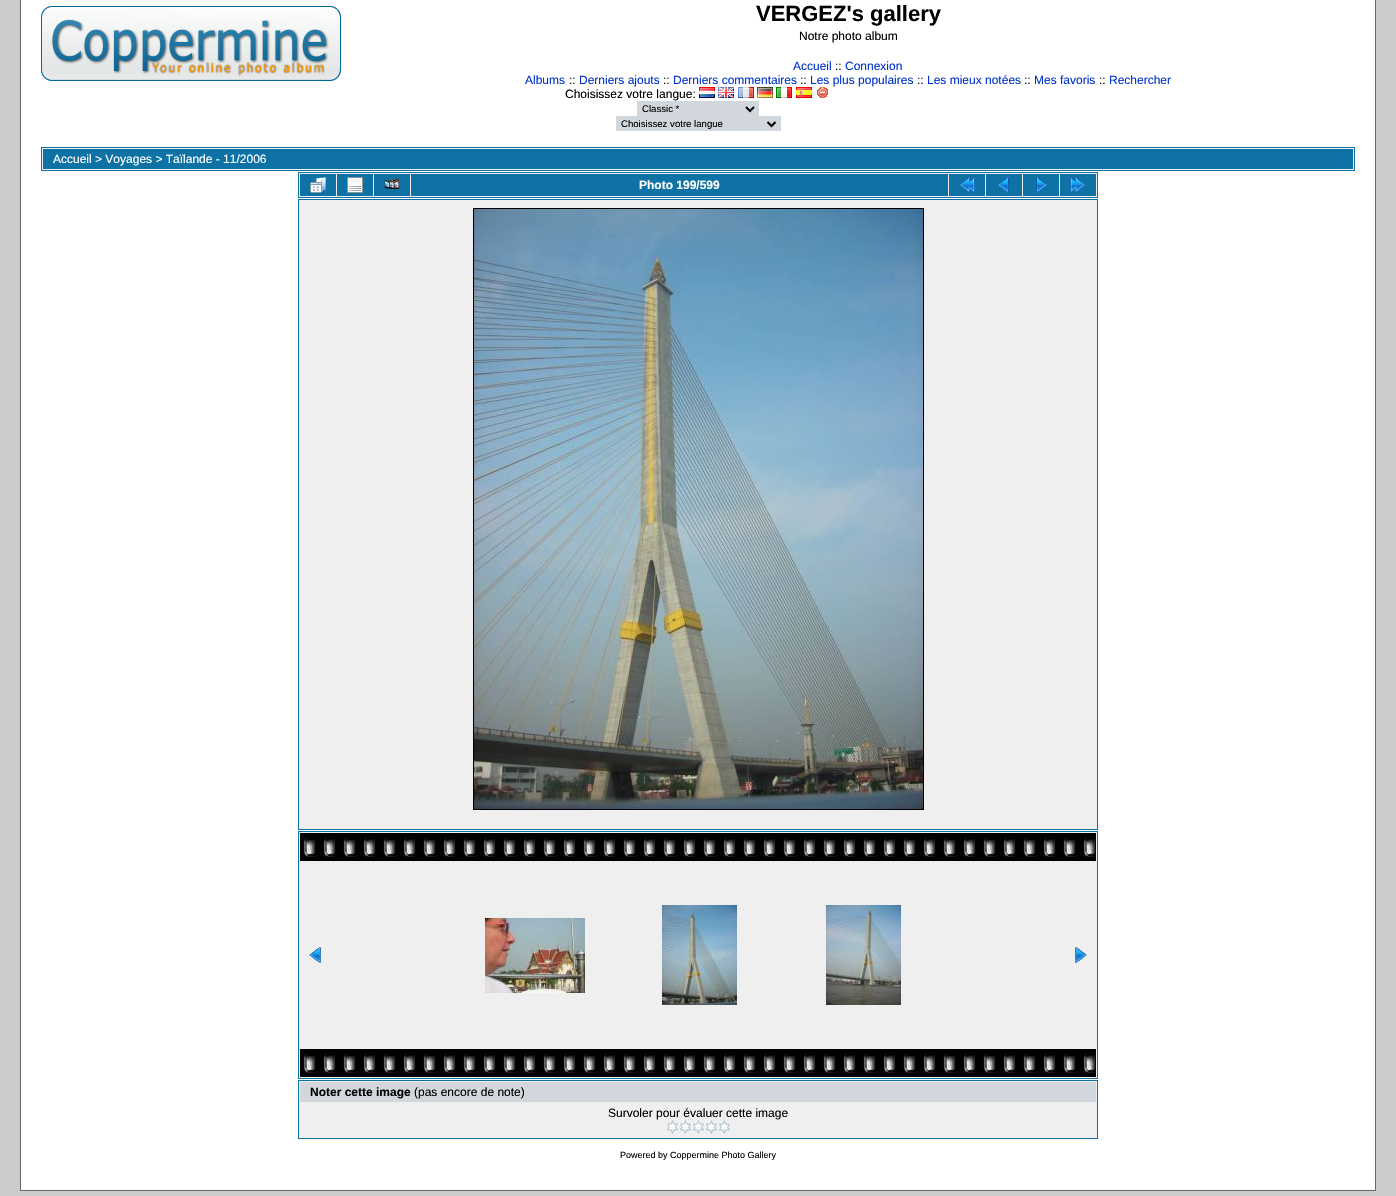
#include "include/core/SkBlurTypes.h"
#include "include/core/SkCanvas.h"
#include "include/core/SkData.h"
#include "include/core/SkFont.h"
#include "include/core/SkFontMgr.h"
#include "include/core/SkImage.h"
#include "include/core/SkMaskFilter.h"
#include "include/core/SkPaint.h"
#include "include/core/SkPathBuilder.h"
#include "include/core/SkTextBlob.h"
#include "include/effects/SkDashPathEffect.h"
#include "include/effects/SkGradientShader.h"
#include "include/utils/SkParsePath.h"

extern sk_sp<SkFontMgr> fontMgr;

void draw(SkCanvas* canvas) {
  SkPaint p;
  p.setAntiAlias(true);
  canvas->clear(SkColorSetRGB(204, 204, 204));
  p.setColor(SK_ColorWHITE);
  canvas->drawRect(SkRect::MakeLTRB(20.5f, -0.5f, 1375.5f, 1190.5f), p);
  p.setStyle(SkPaint::kStroke_Style);
  p.setStrokeWidth(1);
  p.setColor(SkColorSetRGB(102, 102, 102));
  canvas->drawRect(SkRect::MakeLTRB(20.5f, -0.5f, 1375.5f, 1190.5f), p);
  canvas->drawImageRect(SkImages::DeferredFromEncodedData(SkData::MakeFromFileName("images/1.png")), SkRect::MakeLTRB(41, 6, 341, 81), SkSamplingOptions());
  canvas->drawImageRect(SkImages::DeferredFromEncodedData(SkData::MakeFromFileName("images/2.png")), SkRect::MakeLTRB(699, 87, 715, 98), SkSamplingOptions());
  canvas->drawImageRect(SkImages::DeferredFromEncodedData(SkData::MakeFromFileName("images/3.png")), SkRect::MakeLTRB(718, 87, 734, 98), SkSamplingOptions());
  canvas->drawImageRect(SkImages::DeferredFromEncodedData(SkData::MakeFromFileName("images/4.png")), SkRect::MakeLTRB(738, 87, 754, 98), SkSamplingOptions());
  canvas->drawImageRect(SkImages::DeferredFromEncodedData(SkData::MakeFromFileName("images/5.png")), SkRect::MakeLTRB(757, 87, 773, 98), SkSamplingOptions());
  canvas->drawImageRect(SkImages::DeferredFromEncodedData(SkData::MakeFromFileName("images/6.png")), SkRect::MakeLTRB(776, 87, 792, 98), SkSamplingOptions());
  canvas->drawImageRect(SkImages::DeferredFromEncodedData(SkData::MakeFromFileName("images/7.png")), SkRect::MakeLTRB(796, 87, 812, 98), SkSamplingOptions());
  canvas->drawImageRect(SkImages::DeferredFromEncodedData(SkData::MakeFromFileName("images/8.png")), SkRect::MakeLTRB(817, 87, 828, 98), SkSamplingOptions());
  p.setStyle(SkPaint::kFill_Style);
  p.setColor(SkColorSetRGB(209, 215, 220));
  canvas->drawRect(SkRect::MakeLTRB(637, 101, 759, 116), p);
  p.setStyle(SkPaint::kStroke_Style);
  p.setStrokeWidth(2);
  p.setColor(SK_ColorBLACK);
  canvas->drawPath(SkPathBuilder().moveTo(746, 107).lineTo(750, 111).lineTo(754, 107).detach(), p);
  p.setStyle(SkPaint::kFill_Style);
  p.setColor(SkColorSetRGB(209, 215, 220));
  canvas->drawRect(SkRect::MakeLTRB(616, 116, 781, 131), p);
  p.setStyle(SkPaint::kStroke_Style);
  p.setColor(SK_ColorBLACK);
  canvas->drawPath(SkPathBuilder().moveTo(767.5f, 122).lineTo(771.5f, 126).lineTo(775.5f, 122).detach(), p);
  p.setStyle(SkPaint::kFill_Style);
  p.setColor(SkColorSetRGB(239, 239, 239));
  canvas->drawRect(SkRect::MakeLTRB(41.5f, 147.5f, 1354.5f, 170.5f), p);
  p.setStyle(SkPaint::kStroke_Style);
  p.setStrokeWidth(1);
  p.setColor(SkColorSetRGB(14, 114, 164));
  canvas->drawRect(SkRect::MakeLTRB(41.5f, 147.5f, 1354.5f, 170.5f), p);
  p.setStyle(SkPaint::kFill_Style);
  canvas->drawRect(SkRect::MakeLTRB(43, 149, 1353, 169), p);
  p.setColor(SkColorSetRGB(239, 239, 239));
  canvas->drawRect(SkRect::MakeLTRB(298.5f, 172.5f, 1097.5f, 197.5f), p);
  p.setStyle(SkPaint::kStroke_Style);
  p.setColor(SkColorSetRGB(14, 114, 164));
  canvas->drawRect(SkRect::MakeLTRB(298.5f, 172.5f, 1097.5f, 197.5f), p);
  p.setStyle(SkPaint::kFill_Style);
  canvas->drawRect(SkRect::MakeLTRB(300, 174, 336, 196), p);
  canvas->drawImageRect(SkImages::DeferredFromEncodedData(SkData::MakeFromFileName("images/9.png")), SkRect::MakeLTRB(310, 177, 326, 193), SkSamplingOptions());
  canvas->drawRect(SkRect::MakeLTRB(337, 174, 373, 196), p);
  canvas->drawImageRect(SkImages::DeferredFromEncodedData(SkData::MakeFromFileName("images/10.png")), SkRect::MakeLTRB(347, 177, 363, 193), SkSamplingOptions());
  canvas->drawRect(SkRect::MakeLTRB(374, 174, 410, 196), p);
  canvas->drawImageRect(SkImages::DeferredFromEncodedData(SkData::MakeFromFileName("images/11.png")), SkRect::MakeLTRB(384, 178, 400, 190), SkSamplingOptions());
  canvas->drawRect(SkRect::MakeLTRB(411, 174, 948, 196), p);
  canvas->drawRect(SkRect::MakeLTRB(949, 174, 985, 196), p);
  canvas->drawImageRect(SkImages::DeferredFromEncodedData(SkData::MakeFromFileName("images/12.png")), SkRect::MakeLTRB(959, 177, 975, 193), SkSamplingOptions());
  canvas->drawRect(SkRect::MakeLTRB(986, 174, 1022, 196), p);
  canvas->drawImageRect(SkImages::DeferredFromEncodedData(SkData::MakeFromFileName("images/13.png")), SkRect::MakeLTRB(997, 177, 1009, 193), SkSamplingOptions());
  canvas->drawRect(SkRect::MakeLTRB(1023, 174, 1059, 196), p);
  canvas->drawImageRect(SkImages::DeferredFromEncodedData(SkData::MakeFromFileName("images/14.png")), SkRect::MakeLTRB(1036, 177, 1048, 193), SkSamplingOptions());
  canvas->drawRect(SkRect::MakeLTRB(1060, 174, 1096, 196), p);
  canvas->drawImageRect(SkImages::DeferredFromEncodedData(SkData::MakeFromFileName("images/15.png")), SkRect::MakeLTRB(1070, 177, 1086, 193), SkSamplingOptions());
  p.setColor(SkColorSetRGB(239, 239, 239));
  canvas->drawRect(SkRect::MakeLTRB(298.5f, 199.5f, 1097.5f, 829.5f), p);
  p.setStyle(SkPaint::kStroke_Style);
  p.setColor(SkColorSetRGB(14, 114, 164));
  canvas->drawRect(SkRect::MakeLTRB(298.5f, 199.5f, 1097.5f, 829.5f), p);
  p.setColor(SK_ColorBLACK);
  canvas->drawRect(SkRect::MakeLTRB(473.5f, 208.5f, 923.5f, 809.5f), p);
  canvas->drawImageRect(SkImages::DeferredFromEncodedData(SkData::MakeFromFileName("images/16.png")), SkRect::MakeLTRB(474, 209, 923, 809), SkSamplingOptions());
  p.setStyle(SkPaint::kFill_Style);
  p.setColor(SkColorSetRGB(239, 239, 239));
  canvas->drawRect(SkRect::MakeLTRB(298.5f, 831.5f, 1097.5f, 1078.5f), p);
  p.setStyle(SkPaint::kStroke_Style);
  p.setColor(SkColorSetRGB(14, 114, 164));
  canvas->drawRect(SkRect::MakeLTRB(298.5f, 831.5f, 1097.5f, 1078.5f), p);
  canvas->drawImageRect(SkImages::DeferredFromEncodedData(SkData::MakeFromFileName("images/17.png")), SkRect::MakeLTRB(300, 833, 1096, 861), SkSamplingOptions());
  canvas->drawImageRect(SkImages::DeferredFromEncodedData(SkData::MakeFromFileName("images/18.png")), SkRect::MakeLTRB(309, 947, 321, 963), SkSamplingOptions());
  canvas->drawImageRect(SkImages::DeferredFromEncodedData(SkData::MakeFromFileName("images/19.png")), SkRect::MakeLTRB(485, 918, 585, 993), SkSamplingOptions());
  canvas->drawImageRect(SkImages::DeferredFromEncodedData(SkData::MakeFromFileName("images/20.png")), SkRect::MakeLTRB(662, 905, 737, 1005), SkSamplingOptions());
  canvas->drawImageRect(SkImages::DeferredFromEncodedData(SkData::MakeFromFileName("images/21.png")), SkRect::MakeLTRB(826, 905, 901, 1005), SkSamplingOptions());
  canvas->drawImageRect(SkImages::DeferredFromEncodedData(SkData::MakeFromFileName("images/22.png")), SkRect::MakeLTRB(1075, 947, 1087, 963), SkSamplingOptions());
  canvas->drawImageRect(SkImages::DeferredFromEncodedData(SkData::MakeFromFileName("images/17.png")), SkRect::MakeLTRB(300, 1049, 1096, 1077), SkSamplingOptions());
  p.setStyle(SkPaint::kFill_Style);
  p.setColor(SkColorSetRGB(239, 239, 239));
  canvas->drawRect(SkRect::MakeLTRB(298.5f, 1080.5f, 1097.5f, 1138.5f), p);
  p.setStyle(SkPaint::kStroke_Style);
  p.setColor(SkColorSetRGB(14, 114, 164));
  canvas->drawRect(SkRect::MakeLTRB(298.5f, 1080.5f, 1097.5f, 1138.5f), p);
  p.setStyle(SkPaint::kFill_Style);
  p.setColor(SkColorSetRGB(209, 215, 220));
  canvas->drawRect(SkRect::MakeLTRB(300, 1082, 1096, 1102), p);
  canvas->drawImageRect(SkImages::DeferredFromEncodedData(SkData::MakeFromFileName("images/23.png")), SkRect::MakeLTRB(666, 1120, 679, 1134), SkSamplingOptions());
  canvas->drawImageRect(SkImages::DeferredFromEncodedData(SkData::MakeFromFileName("images/23.png")), SkRect::MakeLTRB(679, 1120, 692, 1134), SkSamplingOptions());
  canvas->drawImageRect(SkImages::DeferredFromEncodedData(SkData::MakeFromFileName("images/23.png")), SkRect::MakeLTRB(692, 1120, 705, 1134), SkSamplingOptions());
  canvas->drawImageRect(SkImages::DeferredFromEncodedData(SkData::MakeFromFileName("images/23.png")), SkRect::MakeLTRB(705, 1120, 718, 1134), SkSamplingOptions());
  canvas->drawImageRect(SkImages::DeferredFromEncodedData(SkData::MakeFromFileName("images/23.png")), SkRect::MakeLTRB(718, 1120, 731, 1134), SkSamplingOptions());
  SkFont font1(fontMgr->matchFamilyStyle("Liberation Sans", SkFontStyle::Bold()), 22);
  font1.setSubpixel(true);
  p.setColor(SK_ColorBLACK);
  canvas->drawString("VERGEZ's gallery", 756, 21, font1, p);
  SkFont font2(fontMgr->matchFamilyStyle("Liberation Sans", SkFontStyle::Normal()), 12);
  font2.setSubpixel(true);
  canvas->drawString("Notre photo album", 799, 40, font2, p);
  p.setColor(SkColorSetRGB(0, 51, 204));
  canvas->drawString("Accueil", 793, 70, font2, p);
  p.setColor(SK_ColorBLACK);
  canvas->drawString("::", 835, 70, font2, p);
  p.setColor(SkColorSetRGB(0, 51, 204));
  canvas->drawString("Connexion", 845, 70, font2, p);
  canvas->drawString("Albums", 525, 84, font2, p);
  p.setColor(SK_ColorBLACK);
  canvas->drawString("::", 569, 84, font2, p);
  p.setColor(SkColorSetRGB(0, 51, 204));
  canvas->drawString("Derniers ajouts", 579, 84, font2, p);
  p.setColor(SK_ColorBLACK);
  canvas->drawString("::", 663, 84, font2, p);
  p.setColor(SkColorSetRGB(0, 51, 204));
  canvas->drawString("Derniers commentaires", 673, 84, font2, p);
  p.setColor(SK_ColorBLACK);
  canvas->drawString("::", 800, 84, font2, p);
  p.setColor(SkColorSetRGB(0, 51, 204));
  canvas->drawString("Les plus populaires", 810, 84, font2, p);
  p.setColor(SK_ColorBLACK);
  canvas->drawString("::", 917, 84, font2, p);
  p.setColor(SkColorSetRGB(0, 51, 204));
  canvas->drawString("Les mieux notées", 927, 84, font2, p);
  p.setColor(SK_ColorBLACK);
  canvas->drawString("::", 1024, 84, font2, p);
  p.setColor(SkColorSetRGB(0, 51, 204));
  canvas->drawString("Mes favoris", 1034, 84, font2, p);
  p.setColor(SK_ColorBLACK);
  canvas->drawString("::", 1099, 84, font2, p);
  p.setColor(SkColorSetRGB(0, 51, 204));
  canvas->drawString("Rechercher", 1109, 84, font2, p);
  p.setColor(SK_ColorBLACK);
  canvas->drawString("Choisissez votre langue:", 565, 98, font2, p);
  SkFont font3(fontMgr->matchFamilyStyle("Liberation Sans", SkFontStyle::Normal()), 9.6f);
  font3.setSubpixel(true);
  canvas->drawString("Classic *", 642, 112, font3, p);
  canvas->drawString("Choisissez votre langue", 621, 127, font3, p);
  p.setColor(SK_ColorWHITE);
  canvas->drawString("Accueil > Voyages > Taïlande - 11/2006", 53, 163, font2, p);
  SkFont font4(fontMgr->matchFamilyStyle("Liberation Sans", SkFontStyle::Bold()), 12);
  font4.setSubpixel(true);
  canvas->drawString("Photo 199/599", 639, 189, font4, p);
  p.setColor(SK_ColorBLACK);
  canvas->drawString("Noter cette image", 310, 1096, font4, p);
  canvas->drawString("(pas encore de note)", 414, 1096, font2, p);
  canvas->drawString("Survoler pour évaluer cette image", 608, 1117, font2, p);
  SkFont font5(fontMgr->matchFamilyStyle("Liberation Sans", SkFontStyle::Normal()), 9);
  font5.setSubpixel(true);
  canvas->drawString("Powered by Coppermine Photo Gallery", 620, 1158, font5, p);
}
